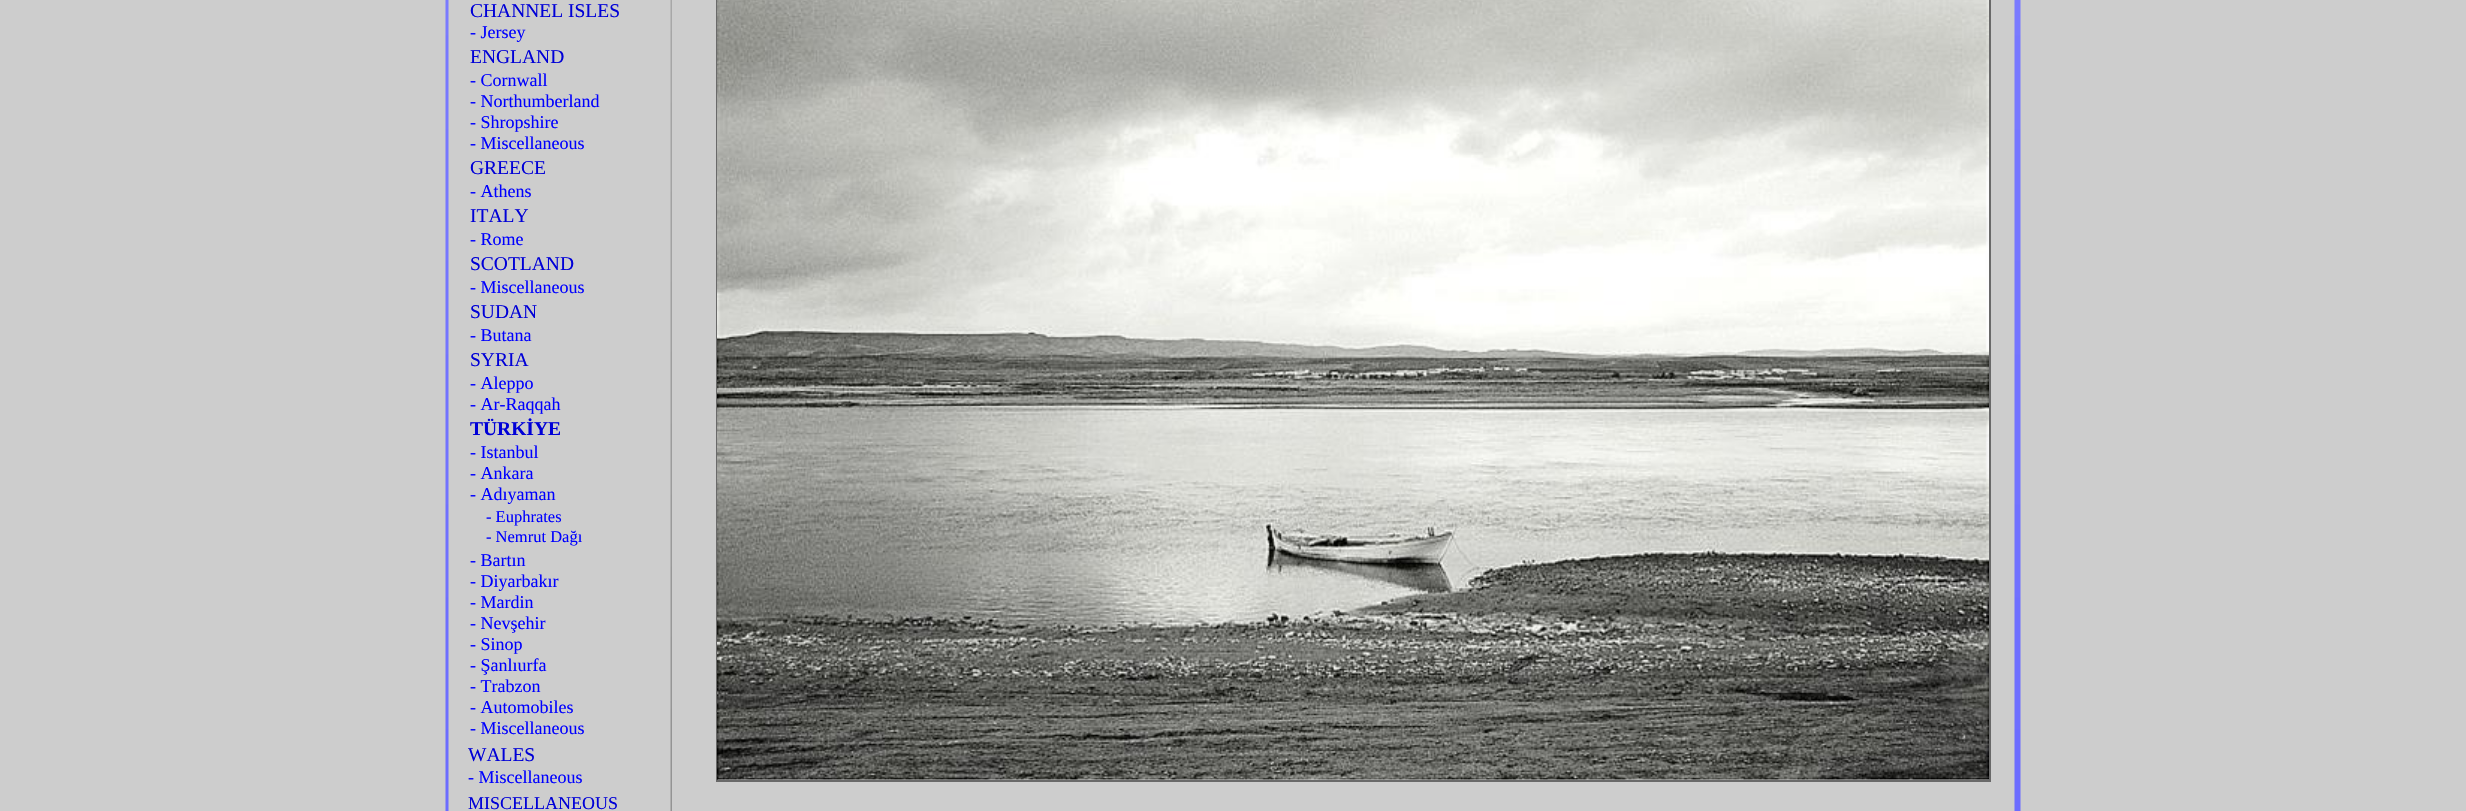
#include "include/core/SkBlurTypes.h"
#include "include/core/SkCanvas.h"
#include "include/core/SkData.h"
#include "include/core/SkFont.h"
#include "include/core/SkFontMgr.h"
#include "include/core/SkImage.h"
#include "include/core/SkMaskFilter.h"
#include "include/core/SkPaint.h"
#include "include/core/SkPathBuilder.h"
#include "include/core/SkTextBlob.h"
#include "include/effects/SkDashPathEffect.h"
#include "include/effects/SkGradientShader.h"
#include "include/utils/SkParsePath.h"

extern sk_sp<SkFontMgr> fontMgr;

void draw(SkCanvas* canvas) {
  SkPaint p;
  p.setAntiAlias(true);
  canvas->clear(SkColorSetRGB(205, 205, 205));
  canvas->drawImageRect(SkImages::DeferredFromEncodedData(SkData::MakeFromFileName("images/1.png")), SkRect::MakeLTRB(445, 0, 449, 811), SkSamplingOptions());
  canvas->drawImageRect(SkImages::DeferredFromEncodedData(SkData::MakeFromFileName("images/2.png")), SkRect::MakeLTRB(670, 0, 672, 811), SkSamplingOptions());
  p.setStyle(SkPaint::kStroke_Style);
  p.setStrokeWidth(2);
  p.setColor(SkColorSetRGB(105, 105, 105));
  canvas->drawRect(SkRect::MakeLTRB(717, -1, 1990, 781), p);
  canvas->drawImageRect(SkImages::DeferredFromEncodedData(SkData::MakeFromFileName("images/3.png")), SkRect::MakeLTRB(717, 0, 1989, 780), SkSamplingOptions());
  canvas->drawImageRect(SkImages::DeferredFromEncodedData(SkData::MakeFromFileName("images/4.png")), SkRect::MakeLTRB(2014, 0, 2021, 811), SkSamplingOptions());
  SkFont font1(fontMgr->matchFamilyStyle("Liberation Serif", SkFontStyle::Normal()), 19.5f);
  font1.setSubpixel(true);
  p.setStyle(SkPaint::kFill_Style);
  p.setColor(SkColorSetRGB(0, 0, 215));
  canvas->drawString("CHANNEL ISLES", 470, 17, font1, p);
  SkFont font2(fontMgr->matchFamilyStyle("Liberation Serif", SkFontStyle::Normal()), 18);
  font2.setSubpixel(true);
  p.setColor(SkColorSetRGB(0, 0, 255));
  canvas->drawString("- Jersey", 470, 38, font2, p);
  p.setColor(SkColorSetRGB(0, 0, 215));
  canvas->drawString("ENGLAND", 470, 63, font1, p);
  p.setColor(SkColorSetRGB(0, 0, 255));
  canvas->drawString("- Cornwall", 470, 86, font2, p);
  canvas->drawString("- Northumberland", 470, 107, font2, p);
  canvas->drawString("- Shropshire", 470, 128, font2, p);
  canvas->drawString("- Miscellaneous", 470, 149, font2, p);
  p.setColor(SkColorSetRGB(0, 0, 215));
  canvas->drawString("GREECE", 470, 174, font1, p);
  p.setColor(SkColorSetRGB(0, 0, 255));
  canvas->drawString("- Athens", 470, 197, font2, p);
  p.setColor(SkColorSetRGB(0, 0, 215));
  canvas->drawString("ITALY", 470, 222, font1, p);
  p.setColor(SkColorSetRGB(0, 0, 255));
  canvas->drawString("- Rome", 470, 245, font2, p);
  p.setColor(SkColorSetRGB(0, 0, 215));
  canvas->drawString("SCOTLAND", 470, 270, font1, p);
  p.setColor(SkColorSetRGB(0, 0, 255));
  canvas->drawString("- Miscellaneous", 470, 293, font2, p);
  p.setColor(SkColorSetRGB(0, 0, 215));
  canvas->drawString("SUDAN", 470, 318, font1, p);
  p.setColor(SkColorSetRGB(0, 0, 255));
  canvas->drawString("- Butana", 470, 341, font2, p);
  p.setColor(SkColorSetRGB(0, 0, 215));
  canvas->drawString("SYRIA", 470, 366, font1, p);
  p.setColor(SkColorSetRGB(0, 0, 255));
  canvas->drawString("- Aleppo", 470, 389, font2, p);
  canvas->drawString("- Ar-Raqqah", 470, 410, font2, p);
  SkFont font3(fontMgr->matchFamilyStyle("Liberation Serif", SkFontStyle::Bold()), 19.5f);
  font3.setSubpixel(true);
  p.setColor(SkColorSetRGB(0, 0, 215));
  canvas->drawString("TÜRKİYE", 470, 435, font3, p);
  p.setColor(SkColorSetRGB(0, 0, 255));
  canvas->drawString("- Istanbul", 470, 458, font2, p);
  canvas->drawString("- Ankara", 470, 479, font2, p);
  canvas->drawString("- Adıyaman", 470, 500, font2, p);
  SkFont font4(fontMgr->matchFamilyStyle("Liberation Serif", SkFontStyle::Normal()), 16.5f);
  font4.setSubpixel(true);
  canvas->drawString("- Euphrates", 486, 522, font4, p);
  canvas->drawString("- Nemrut Dağı", 486, 542, font4, p);
  canvas->drawString("- Bartın", 470, 566, font2, p);
  canvas->drawString("- Diyarbakır", 470, 587, font2, p);
  canvas->drawString("- Mardin", 470, 608, font2, p);
  canvas->drawString("- Nevşehir", 470, 629, font2, p);
  canvas->drawString("- Sinop", 470, 650, font2, p);
  canvas->drawString("- Şanlıurfa", 470, 671, font2, p);
  canvas->drawString("- Trabzon", 470, 692, font2, p);
  canvas->drawString("- Automobiles", 470, 713, font2, p);
  canvas->drawString("- Miscellaneous", 470, 734, font2, p);
  p.setColor(SkColorSetRGB(0, 0, 215));
  canvas->drawString("WALES", 468, 761, font1, p);
  p.setColor(SkColorSetRGB(0, 0, 255));
  canvas->drawString("- Miscellaneous", 468, 783, font2, p);
  p.setColor(SkColorSetRGB(0, 0, 215));
  canvas->drawString("MISCELLANEOUS", 468, 809, font2, p);
}
